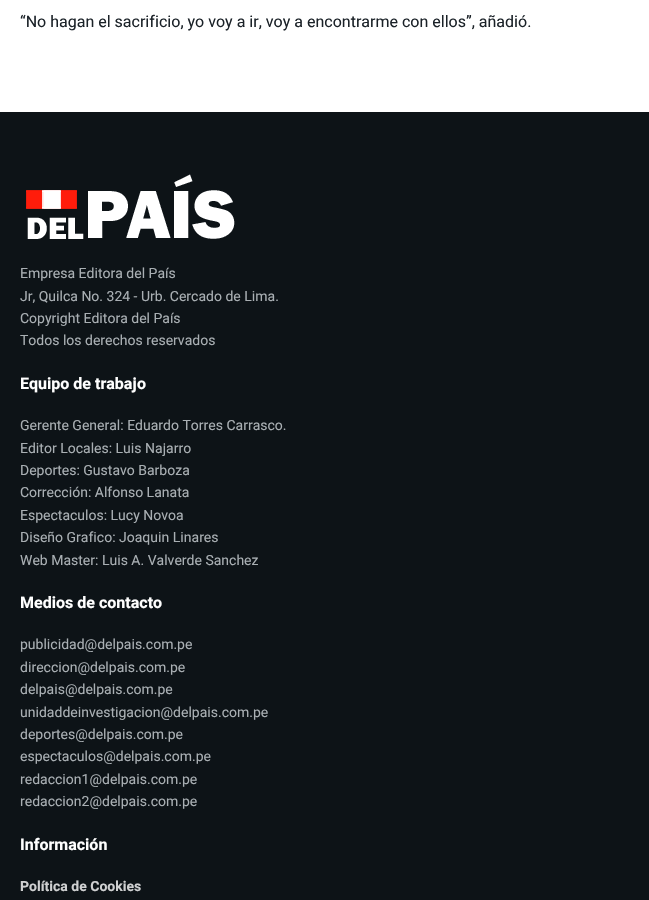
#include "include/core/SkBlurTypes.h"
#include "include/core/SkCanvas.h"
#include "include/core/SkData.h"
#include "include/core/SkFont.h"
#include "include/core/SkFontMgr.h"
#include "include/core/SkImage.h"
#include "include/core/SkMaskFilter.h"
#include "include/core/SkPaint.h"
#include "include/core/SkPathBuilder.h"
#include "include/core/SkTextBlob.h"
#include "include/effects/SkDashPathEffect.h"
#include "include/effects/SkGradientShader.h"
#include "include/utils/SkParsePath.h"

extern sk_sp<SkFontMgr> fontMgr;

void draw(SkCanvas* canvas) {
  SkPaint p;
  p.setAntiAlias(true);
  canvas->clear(SK_ColorWHITE);
  p.setColor(SkColorSetRGB(13, 19, 23));
  canvas->drawRect(SkRect::MakeLTRB(0, 112, 649, 900), p);
  canvas->drawImageRect(SkImages::DeferredFromEncodedData(SkData::MakeFromFileName("images/1.png")), SkRect::MakeLTRB(26, 174, 235, 239), SkSamplingOptions());
  SkFont font1(fontMgr->matchFamilyStyle("Heebo", SkFontStyle::Normal()), 16);
  font1.setSubpixel(true);
  p.setColor(SkColorSetRGB(27, 34, 40));
  canvas->drawString("“No hagan el sacrificio, yo voy a ir, voy a encontrarme con ellos”, añadió.", 20, 27, font1, p);
  SkFont font2(fontMgr->matchFamilyStyle("Heebo", SkFontStyle::Normal()), 14);
  font2.setSubpixel(true);
  p.setColor(SkColorSetRGB(169, 175, 179));
  canvas->drawString("Empresa Editora del País", 20, 278, font2, p);
  canvas->drawString("Jr, Quilca No. 324 - Urb. Cercado de Lima.", 20, 301, font2, p);
  canvas->drawString("Copyright Editora del País", 20, 323, font2, p);
  canvas->drawString("Todos los derechos reservados", 20, 345, font2, p);
  SkFont font3(fontMgr->matchFamilyStyle("Heebo", SkFontStyle::Bold()), 16);
  font3.setSubpixel(true);
  p.setColor(SK_ColorWHITE);
  canvas->drawString("Equipo de trabajo", 20, 389, font3, p);
  p.setColor(SkColorSetRGB(169, 175, 179));
  canvas->drawString("Gerente General: Eduardo Torres Carrasco.", 20, 430, font2, p);
  canvas->drawString("Editor Locales: Luis Najarro", 20, 453, font2, p);
  canvas->drawString("Deportes: Gustavo Barboza", 20, 475, font2, p);
  canvas->drawString("Corrección: Alfonso Lanata", 20, 497, font2, p);
  canvas->drawString("Espectaculos: Lucy Novoa", 20, 520, font2, p);
  canvas->drawString("Diseño Grafico: Joaquin Linares", 20, 542, font2, p);
  canvas->drawString("Web Master: Luis A. Valverde Sanchez", 20, 565, font2, p);
  p.setColor(SK_ColorWHITE);
  canvas->drawString("Medios de contacto", 20, 608, font3, p);
  p.setColor(SkColorSetRGB(169, 175, 179));
  canvas->drawString("publicidad@delpais.com.pe", 20, 649, font2, p);
  canvas->drawString("direccion@delpais.com.pe", 20, 672, font2, p);
  canvas->drawString("delpais@delpais.com.pe", 20, 694, font2, p);
  canvas->drawString("unidaddeinvestigacion@delpais.com.pe", 20, 717, font2, p);
  canvas->drawString("deportes@delpais.com.pe", 20, 739, font2, p);
  canvas->drawString("espectaculos@delpais.com.pe", 20, 761, font2, p);
  canvas->drawString("redaccion1@delpais.com.pe", 20, 784, font2, p);
  canvas->drawString("redaccion2@delpais.com.pe", 20, 806, font2, p);
  p.setColor(SK_ColorWHITE);
  canvas->drawString("Información", 20, 850, font3, p);
  SkFont font4(fontMgr->matchFamilyStyle("Heebo", SkFontStyle::Bold()), 14);
  font4.setSubpixel(true);
  p.setColor(SkColorSetRGB(207, 208, 209));
  canvas->drawString("Política de Cookies", 20, 891, font4, p);
}
